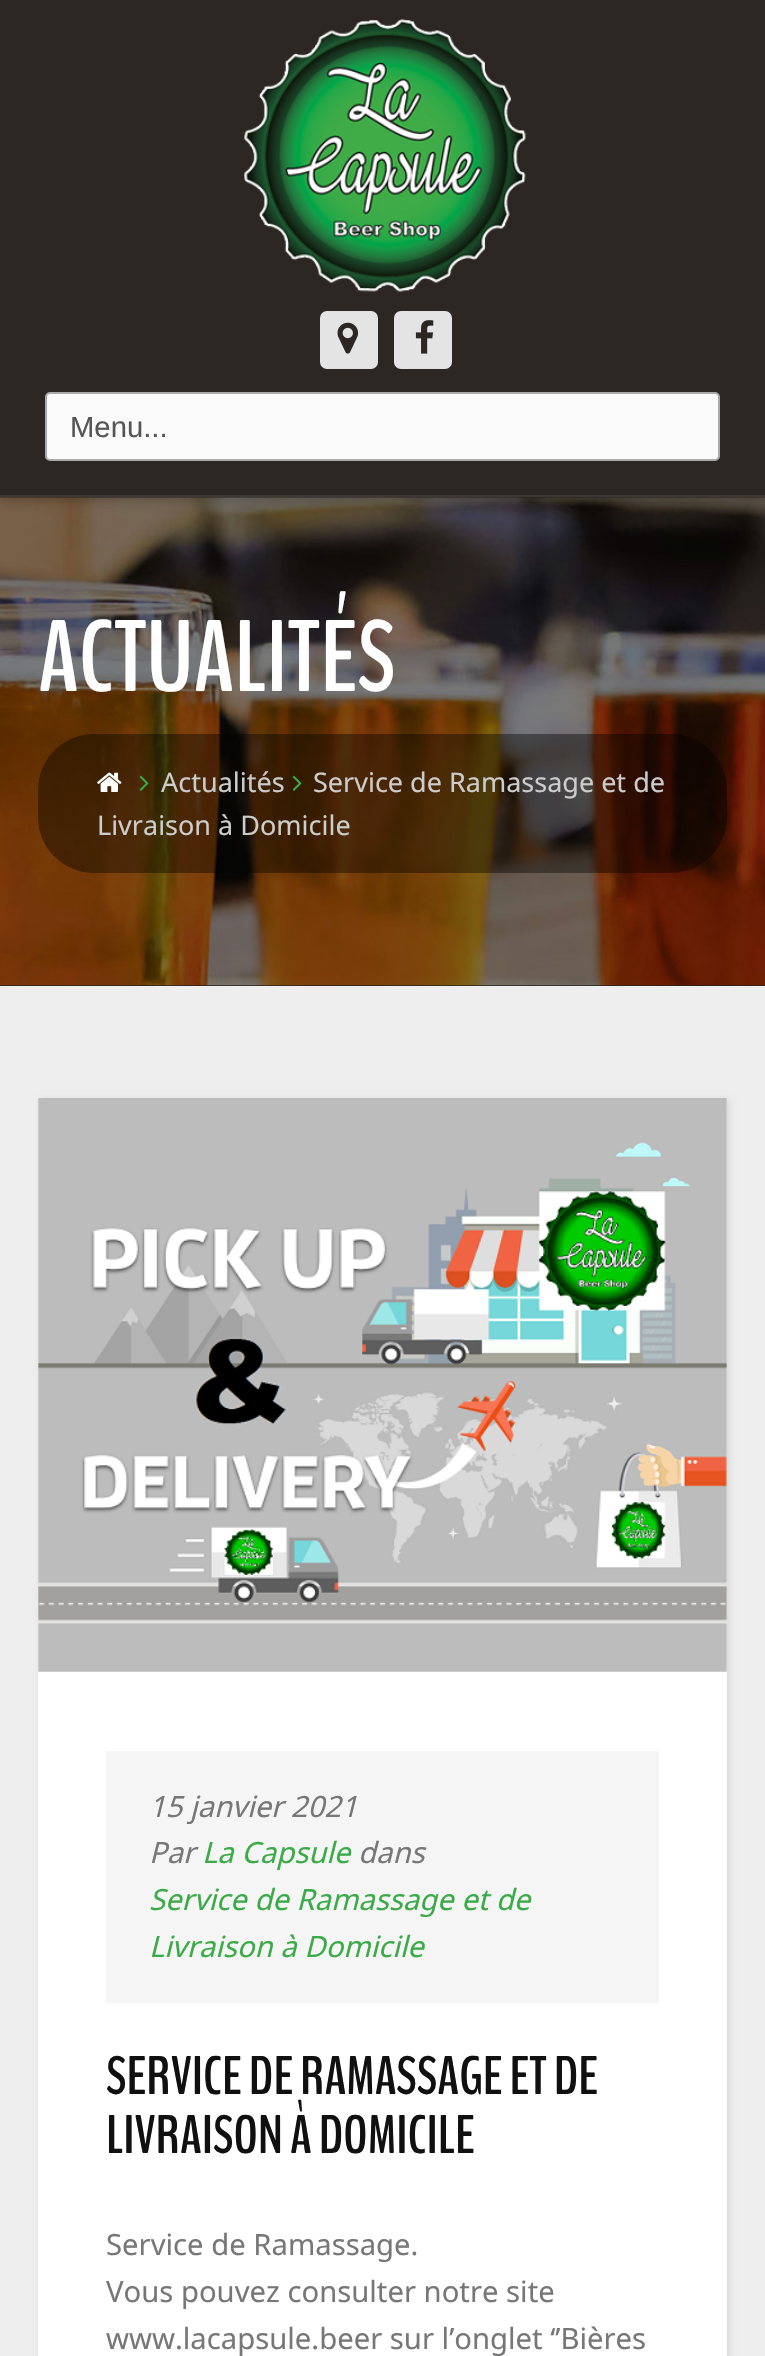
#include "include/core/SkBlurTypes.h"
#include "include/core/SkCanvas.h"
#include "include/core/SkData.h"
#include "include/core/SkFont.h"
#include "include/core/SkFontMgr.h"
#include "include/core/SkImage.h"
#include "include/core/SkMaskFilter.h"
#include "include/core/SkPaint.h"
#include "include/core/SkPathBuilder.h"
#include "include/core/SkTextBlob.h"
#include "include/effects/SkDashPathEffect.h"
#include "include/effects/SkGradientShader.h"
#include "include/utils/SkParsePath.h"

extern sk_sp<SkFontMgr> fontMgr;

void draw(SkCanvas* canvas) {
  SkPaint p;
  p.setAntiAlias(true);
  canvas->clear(SkColorSetRGB(38, 34, 29));
  canvas->drawImageRect(SkImages::DeferredFromEncodedData(SkData::MakeFromFileName("images/4.png")), SkRect::MakeLTRB(0, 497, 765, 986), SkSamplingOptions());
  p.setColor(SkColorSetARGB(102, 0, 0, 0));
  p.setMaskFilter(SkMaskFilter::MakeBlur(kNormal_SkBlurStyle, 7));
  canvas->drawRect(SkRect::MakeLTRB(0, 0, 765, 497), p);
  p.setMaskFilter(nullptr);
  p.setColor(SkColorSetRGB(44, 39, 34));
  canvas->drawRect(SkRect::MakeLTRB(0, 0, 765, 495), p);
  p.setColor(SkColorSetRGB(61, 56, 52));
  canvas->drawRect(SkRect::MakeLTRB(0, 495, 765, 497), p);
  canvas->drawImageRect(SkImages::DeferredFromEncodedData(SkData::MakeFromFileName("images/1.png")), SkRect::MakeLTRB(244, 19, 526, 292), SkSamplingOptions());
  p.setColor(SkColorSetRGB(229, 228, 228));
  canvas->drawRoundRect(SkRect::MakeLTRB(320, 311, 378, 369), 7, 7, p);
  canvas->drawImageRect(SkImages::DeferredFromEncodedData(SkData::MakeFromFileName("images/2.png")), SkRect::MakeLTRB(337, 322, 359, 354), SkSamplingOptions());
  canvas->drawRoundRect(SkRect::MakeLTRB(394, 311, 452, 369), 7, 7, p);
  canvas->drawImageRect(SkImages::DeferredFromEncodedData(SkData::MakeFromFileName("images/3.png")), SkRect::MakeLTRB(415, 320, 434, 354), SkSamplingOptions());
  p.setColor(SkColorSetRGB(250, 250, 250));
  canvas->drawRoundRect(SkRect::MakeLTRB(46, 393, 719, 460), 4, 4, p);
  p.setStyle(SkPaint::kStroke_Style);
  p.setStrokeWidth(2);
  p.setColor(SkColorSetRGB(170, 170, 170));
  canvas->drawRoundRect(SkRect::MakeLTRB(46, 393, 719, 460), 4, 4, p);
  p.setStyle(SkPaint::kFill_Style);
  p.setColor(SkColorSetARGB(102, 0, 0, 0));
  canvas->drawRoundRect(SkRect::MakeLTRB(38, 734, 727, 873), 56, 56, p);
  canvas->drawImageRect(SkImages::DeferredFromEncodedData(SkData::MakeFromFileName("images/5.png")), SkRect::MakeLTRB(97, 772, 122, 792), SkSamplingOptions());
  canvas->drawImageRect(SkImages::DeferredFromEncodedData(SkData::MakeFromFileName("images/6.png")), SkRect::MakeLTRB(139, 775, 149, 791), SkSamplingOptions());
  canvas->drawImageRect(SkImages::DeferredFromEncodedData(SkData::MakeFromFileName("images/7.png")), SkRect::MakeLTRB(292, 775, 302, 791), SkSamplingOptions());
  p.setColor(SkColorSetRGB(238, 238, 238));
  canvas->drawRect(SkRect::MakeLTRB(0, 986, 765, 2356), p);
  p.setColor(SkColorSetARGB(26, 0, 0, 0));
  p.setMaskFilter(SkMaskFilter::MakeBlur(kNormal_SkBlurStyle, 3.5f));
  canvas->drawRect(SkRect::MakeLTRB(41, 1100, 729, 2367), p);
  p.setMaskFilter(nullptr);
  p.setColor(SK_ColorWHITE);
  canvas->drawRect(SkRect::MakeLTRB(38, 1098, 727, 2356), p);
  canvas->drawImageRect(SkImages::DeferredFromEncodedData(SkData::MakeFromFileName("images/8.png")), SkRect::MakeLTRB(38, 1098, 727, 1672), SkSamplingOptions());
  p.setColor(SkColorSetRGB(245, 245, 245));
  canvas->drawRect(SkRect::MakeLTRB(106, 1751, 659, 2003), p);
  SkFont font1(fontMgr->matchFamilyStyle("Liberation Sans", SkFontStyle::Normal()), 29.25f);
  font1.setSubpixel(true);
  p.setColor(SkColorSetRGB(85, 85, 85));
  canvas->drawString("Menu...", 70, 437, font1, p);
  SkFont font2(fontMgr->matchFamilyStyle("BenchNine", SkFontStyle::Bold()), 101);
  font2.setSubpixel(true);
  p.setColor(SK_ColorWHITE);
  canvas->drawString("ACTUALITÉS", 38, 691, font2, p);
  SkFont font3(fontMgr->matchFamilyStyle("Noto Sans", SkFontStyle::Normal()), 27);
  font3.setSubpixel(true);
  p.setColor(SkColorSetRGB(204, 204, 204));
  canvas->drawString("Actualités", 161, 792, font3, p);
  canvas->drawString("Service de Ramassage et de", 313, 792, font3, p);
  canvas->drawString("Livraison à Domicile", 97, 835, font3, p);
  SkFont font4(fontMgr->matchFamilyStyle("Noto Sans", SkFontStyle::Italic()), 29.25f);
  font4.setSubpixel(true);
  p.setColor(SkColorSetRGB(119, 119, 119));
  canvas->drawString("15 janvier 2021", 149, 1817, font4, p);
  canvas->drawString("Par", 149, 1863, font4, p);
  p.setColor(SkColorSetRGB(59, 171, 72));
  canvas->drawString("La Capsule", 202, 1863, font4, p);
  p.setColor(SkColorSetRGB(119, 119, 119));
  canvas->drawString("dans", 358, 1863, font4, p);
  p.setColor(SkColorSetRGB(59, 171, 72));
  canvas->drawString("Service de Ramassage et de", 149, 1910, font4, p);
  canvas->drawString("Livraison à Domicile", 149, 1957, font4, p);
  SkFont font5(fontMgr->matchFamilyStyle("BenchNine", SkFontStyle::Bold()), 54);
  font5.setSubpixel(true);
  p.setColor(SkColorSetRGB(16, 16, 16));
  canvas->drawString("SERVICE DE RAMASSAGE ET DE", 106, 2094, font5, p);
  canvas->drawString("LIVRAISON À DOMICILE", 106, 2153, font5, p);
  SkFont font6(fontMgr->matchFamilyStyle("Noto Sans", SkFontStyle::Normal()), 29.25f);
  font6.setSubpixel(true);
  p.setColor(SkColorSetRGB(119, 119, 119));
  canvas->drawString("Service de Ramassage.", 106, 2255, font6, p);
  canvas->drawString("Vous pouvez consulter notre site", 106, 2302, font6, p);
  canvas->drawString("www.lacapsule.beer sur l’onglet ‘’Bières", 106, 2349, font6, p);
}
